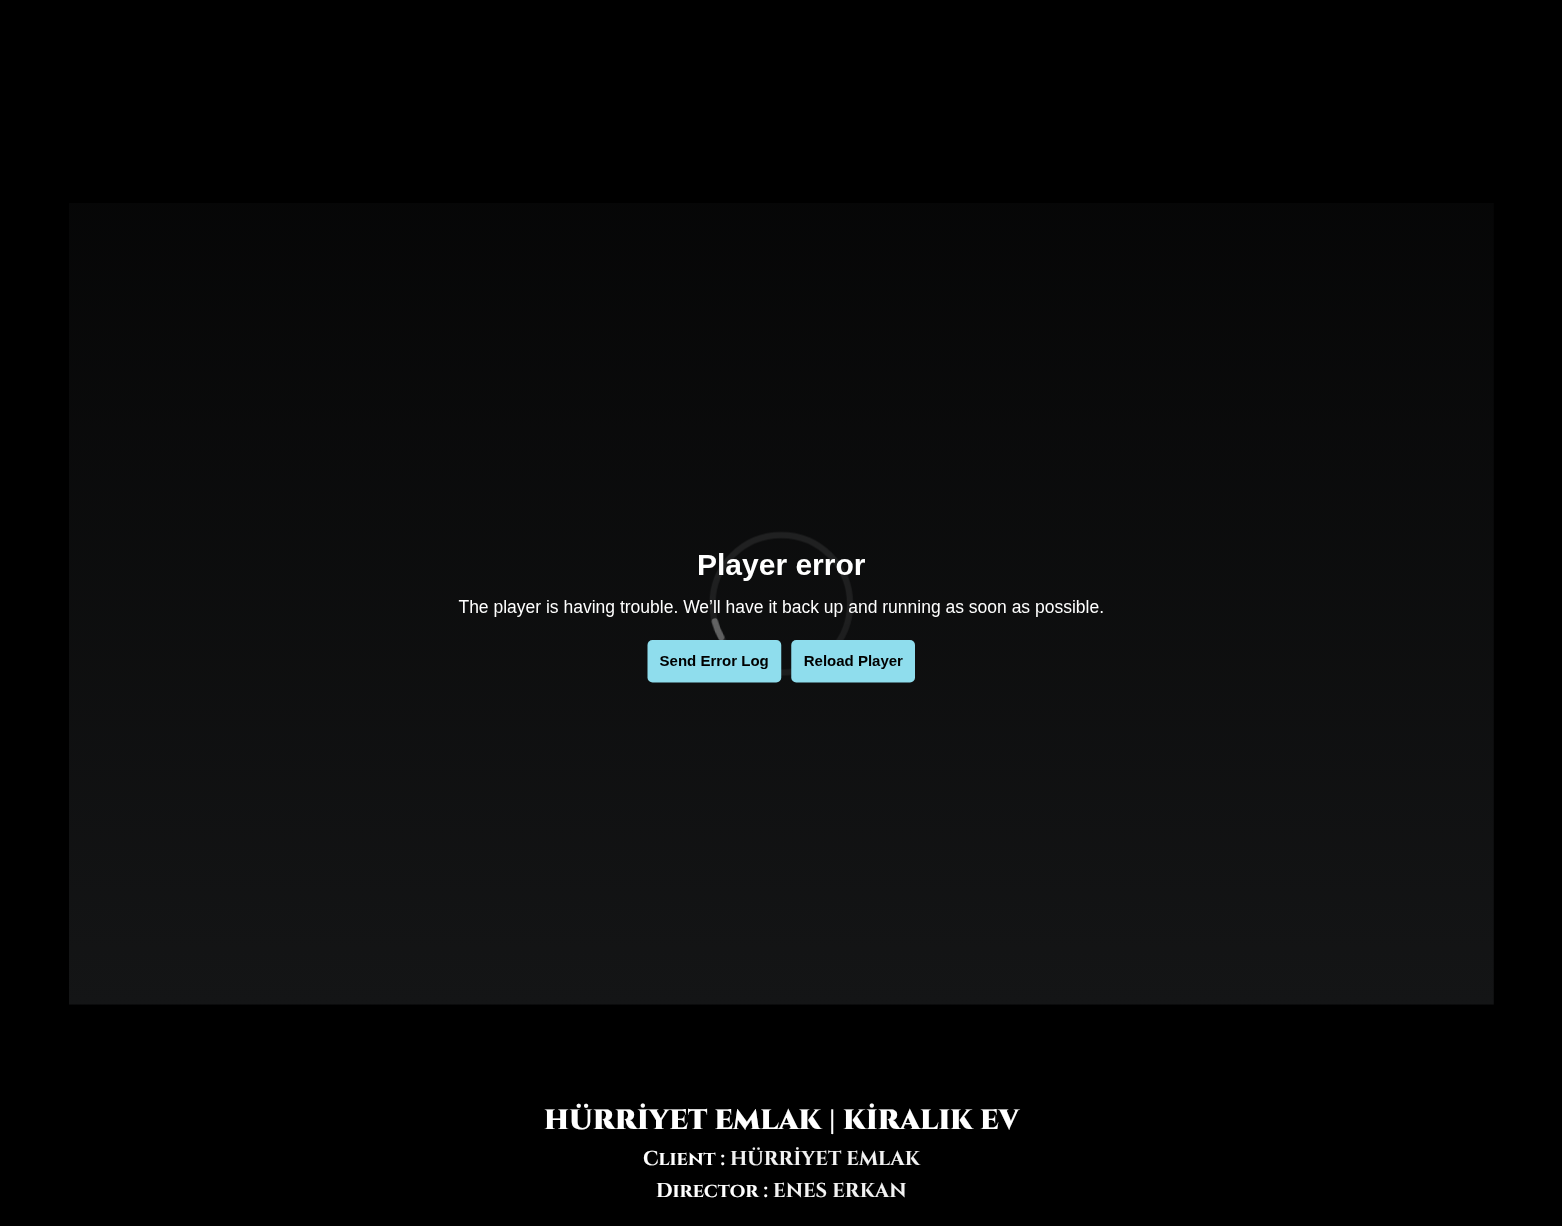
#include "include/core/SkBlurTypes.h"
#include "include/core/SkCanvas.h"
#include "include/core/SkData.h"
#include "include/core/SkFont.h"
#include "include/core/SkFontMgr.h"
#include "include/core/SkImage.h"
#include "include/core/SkMaskFilter.h"
#include "include/core/SkPaint.h"
#include "include/core/SkPathBuilder.h"
#include "include/core/SkTextBlob.h"
#include "include/effects/SkDashPathEffect.h"
#include "include/effects/SkGradientShader.h"
#include "include/utils/SkParsePath.h"

extern sk_sp<SkFontMgr> fontMgr;

void draw(SkCanvas* canvas) {
  SkPaint p;
  p.setAntiAlias(true);
  canvas->clear(SK_ColorBLACK);
  canvas->drawImageRect(SkImages::DeferredFromEncodedData(SkData::MakeFromFileName("images/1.png")), SkRect::MakeLTRB(69, 203, 1494, 1005), SkSamplingOptions());
  SkFont font1(fontMgr->matchFamilyStyle("Cinzel", SkFontStyle(900, SkFontStyle::kNormal_Width, SkFontStyle::kUpright_Slant)), 28);
  font1.setSubpixel(true);
  p.setColor(SK_ColorWHITE);
  canvas->drawString("HÜRRİYET EMLAK | KİRALIK EV", 544, 1129, font1, p);
  SkFont font2(fontMgr->matchFamilyStyle("Cinzel", SkFontStyle::Bold()), 20);
  font2.setSubpixel(true);
  canvas->drawString("Client :", 643, 1165, font2, p);
  p.setColor(SkColorSetRGB(242, 242, 242));
  canvas->drawString("HÜRRİYET EMLAK", 730, 1165, font2, p);
  p.setColor(SK_ColorWHITE);
  canvas->drawString("Director :", 656, 1197, font2, p);
  p.setColor(SkColorSetRGB(242, 242, 242));
  canvas->drawString("ENES ERKAN", 773, 1197, font2, p);
}
